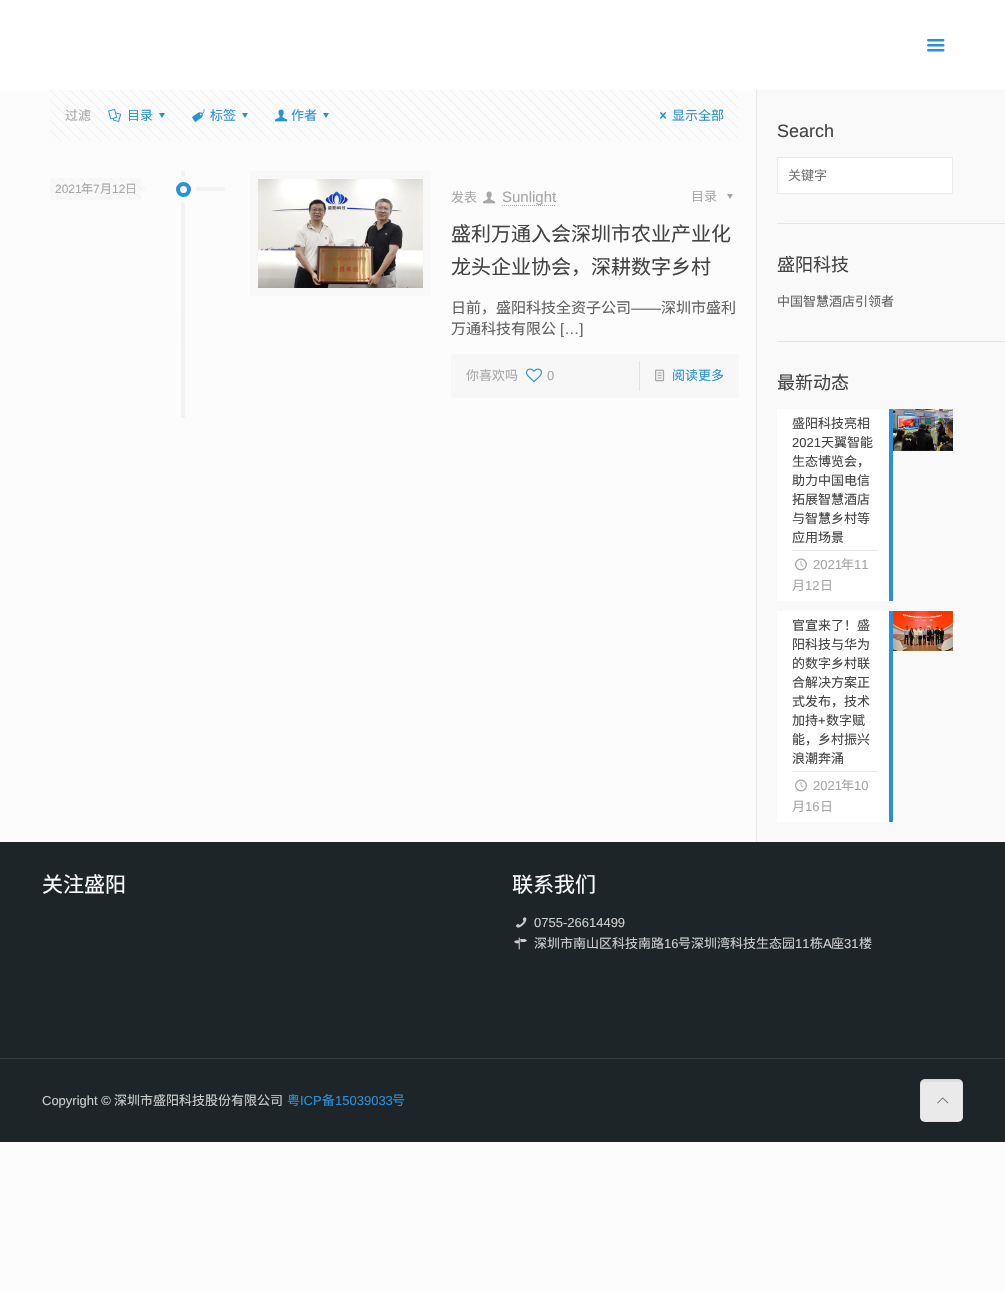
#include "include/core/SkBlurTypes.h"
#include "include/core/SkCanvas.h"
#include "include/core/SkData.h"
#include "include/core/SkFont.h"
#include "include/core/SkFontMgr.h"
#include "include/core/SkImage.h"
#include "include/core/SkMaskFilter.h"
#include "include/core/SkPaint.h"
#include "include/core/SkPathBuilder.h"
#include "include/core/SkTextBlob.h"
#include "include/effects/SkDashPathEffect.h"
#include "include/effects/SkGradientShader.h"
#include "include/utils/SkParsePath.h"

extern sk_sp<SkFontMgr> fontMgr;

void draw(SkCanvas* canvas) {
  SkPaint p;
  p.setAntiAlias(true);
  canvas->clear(SkColorSetRGB(252, 252, 252));
  p.setColor(SK_ColorWHITE);
  canvas->drawRect(SkRect::MakeLTRB(0, 0, 1005, 90), p);
  canvas->drawImageRect(SkImages::DeferredFromEncodedData(SkData::MakeFromFileName("images/1.png")), SkRect::MakeLTRB(927, 39, 945, 52), SkSamplingOptions());
  canvas->drawImageRect(SkImages::DeferredFromEncodedData(SkData::MakeFromFileName("images/2.png")), SkRect::MakeLTRB(50, 90, 739, 141), SkSamplingOptions());
  canvas->drawImageRect(SkImages::DeferredFromEncodedData(SkData::MakeFromFileName("images/3.png")), SkRect::MakeLTRB(108, 109, 122, 122), SkSamplingOptions());
  p.setColor(SkColorSetRGB(41, 145, 214));
  canvas->drawPath(SkPathBuilder().moveTo(165, 113).lineTo(162, 118).lineTo(159, 113).close().detach(), p);
  canvas->drawImageRect(SkImages::DeferredFromEncodedData(SkData::MakeFromFileName("images/4.png")), SkRect::MakeLTRB(192, 109, 205, 122), SkSamplingOptions());
  canvas->drawPath(SkPathBuilder().moveTo(248, 113).lineTo(245, 118).lineTo(242, 113).close().detach(), p);
  canvas->drawImageRect(SkImages::DeferredFromEncodedData(SkData::MakeFromFileName("images/5.png")), SkRect::MakeLTRB(275, 109, 288, 122), SkSamplingOptions());
  canvas->drawPath(SkPathBuilder().moveTo(329, 113).lineTo(326, 118).lineTo(323, 113).close().detach(), p);
  canvas->drawImageRect(SkImages::DeferredFromEncodedData(SkData::MakeFromFileName("images/6.png")), SkRect::MakeLTRB(660, 112, 667, 119), SkSamplingOptions());
  canvas->drawImageRect(SkImages::DeferredFromEncodedData(SkData::MakeFromFileName("images/7.png")), SkRect::MakeLTRB(181, 171, 225, 418), SkSamplingOptions());
  p.setColor(SkColorSetRGB(248, 248, 248));
  canvas->drawRoundRect(SkRect::MakeLTRB(50, 178, 142, 200), 4, 4, p);
  canvas->drawImageRect(SkImages::DeferredFromEncodedData(SkData::MakeFromFileName("images/8.png")), SkRect::MakeLTRB(50, 178, 142, 200), SkSamplingOptions());
  canvas->drawPath(SkPathBuilder().moveTo(142, 194).lineTo(142, 184).lineTo(147, 189).close().detach(), p);
  p.setStyle(SkPaint::kStroke_Style);
  p.setStrokeWidth(4);
  p.setColor(SkColorSetRGB(41, 145, 214));
  canvas->drawCircle(183.5f, 189.5f, 5.5f, p);
  p.setStrokeWidth(8);
  p.setColor(SkColorSetRGB(248, 248, 248));
  canvas->drawRect(SkRect::MakeLTRB(254, 175, 427, 292), p);
  canvas->drawImageRect(SkImages::DeferredFromEncodedData(SkData::MakeFromFileName("images/9.png")), SkRect::MakeLTRB(258, 179, 423, 288), SkSamplingOptions());
  canvas->drawImageRect(SkImages::DeferredFromEncodedData(SkData::MakeFromFileName("images/10.png")), SkRect::MakeLTRB(483, 191, 496, 204), SkSamplingOptions());
  p.setStrokeWidth(1);
  p.setColor(SkColorSetRGB(168, 168, 168));
  p.setPathEffect(SkDashPathEffect::Make({{1, 1}}, 0));
  canvas->drawPath(SkPathBuilder().moveTo(502, 205.5f).lineTo(556, 205.5f).detach(), p);
  p.setPathEffect(nullptr);
  p.setStyle(SkPaint::kFill_Style);
  canvas->drawPath(SkPathBuilder().moveTo(733, 194).lineTo(730, 199).lineTo(727, 194).close().detach(), p);
  p.setColor(SkColorSetRGB(247, 247, 247));
  canvas->drawRect(SkRect::MakeLTRB(451, 354, 739, 398), p);
  canvas->drawImageRect(SkImages::DeferredFromEncodedData(SkData::MakeFromFileName("images/11.png")), SkRect::MakeLTRB(526, 368, 542, 383), SkSamplingOptions());
  p.setColor(SkColorSetRGB(227, 227, 227));
  canvas->drawRect(SkRect::MakeLTRB(639, 361, 640, 391), p);
  canvas->drawImageRect(SkImages::DeferredFromEncodedData(SkData::MakeFromFileName("images/12.png")), SkRect::MakeLTRB(655, 369, 665, 382), SkSamplingOptions());
  p.setColor(SkColorSetRGB(232, 232, 232));
  canvas->drawRect(SkRect::MakeLTRB(756, 90, 757, 842), p);
  p.setColor(SkColorSetRGB(249, 249, 249));
  canvas->drawRect(SkRect::MakeLTRB(757, 90, 1005, 842), p);
  p.setColor(SK_ColorWHITE);
  canvas->drawRect(SkRect::MakeLTRB(777.5f, 157.5f, 952.5f, 193.5f), p);
  p.setStyle(SkPaint::kStroke_Style);
  p.setColor(SkColorSetRGB(235, 235, 235));
  canvas->drawRect(SkRect::MakeLTRB(777.5f, 157.5f, 952.5f, 193.5f), p);
  p.setStyle(SkPaint::kFill_Style);
  p.setColor(SkColorSetRGB(229, 229, 229));
  canvas->drawRect(SkRect::MakeLTRB(777, 223, 1005, 224), p);
  canvas->drawRect(SkRect::MakeLTRB(777, 341, 1005, 342), p);
  p.setColor(SK_ColorWHITE);
  canvas->drawRect(SkRect::MakeLTRB(777, 409, 889, 601), p);
  p.setColor(SkColorSetRGB(235, 235, 235));
  canvas->drawRect(SkRect::MakeLTRB(792, 550, 878, 551), p);
  p.setColor(SkColorSetRGB(41, 145, 214));
  canvas->drawRect(SkRect::MakeLTRB(889, 409, 893, 601), p);
  canvas->drawImageRect(SkImages::DeferredFromEncodedData(SkData::MakeFromFileName("images/13.png")), SkRect::MakeLTRB(795, 558, 807, 571), SkSamplingOptions());
  canvas->drawImageRect(SkImages::DeferredFromEncodedData(SkData::MakeFromFileName("images/14.png")), SkRect::MakeLTRB(893, 409, 953, 451), SkSamplingOptions());
  p.setColor(SK_ColorWHITE);
  canvas->drawRect(SkRect::MakeLTRB(777, 611, 889, 822), p);
  p.setColor(SkColorSetRGB(235, 235, 235));
  canvas->drawRect(SkRect::MakeLTRB(792, 771, 878, 772), p);
  p.setColor(SkColorSetRGB(41, 145, 214));
  canvas->drawRect(SkRect::MakeLTRB(889, 611, 893, 822), p);
  canvas->drawImageRect(SkImages::DeferredFromEncodedData(SkData::MakeFromFileName("images/13.png")), SkRect::MakeLTRB(795, 779, 807, 792), SkSamplingOptions());
  canvas->drawImageRect(SkImages::DeferredFromEncodedData(SkData::MakeFromFileName("images/15.png")), SkRect::MakeLTRB(893, 611, 953, 651), SkSamplingOptions());
  p.setColor(SkColorSetRGB(29, 37, 40));
  canvas->drawRect(SkRect::MakeLTRB(0, 842, 1005, 1142), p);
  canvas->drawImageRect(SkImages::DeferredFromEncodedData(SkData::MakeFromFileName("images/16.png")), SkRect::MakeLTRB(516, 917, 527, 928), SkSamplingOptions());
  canvas->drawImageRect(SkImages::DeferredFromEncodedData(SkData::MakeFromFileName("images/17.png")), SkRect::MakeLTRB(514, 937, 527, 950), SkSamplingOptions());
  p.setColor(SkColorSetRGB(52, 59, 62));
  canvas->drawRect(SkRect::MakeLTRB(0, 1058, 1005, 1059), p);
  p.setColor(SkColorSetRGB(247, 247, 247));
  canvas->drawRoundRect(SkRect::MakeLTRB(920, 1079, 963, 1122), 5, 5, p);
  p.setColor(SkColorSetARGB(13, 0, 0, 0));
  canvas->drawRect(SkRect::MakeLTRB(921, 1079, 962, 1082), p);
  p.setStyle(SkPaint::kStroke_Style);
  p.setColor(SkColorSetARGB(8, 0, 0, 0));
  canvas->drawRect(SkRect::MakeLTRB(920.5f, 1079.5f, 962.5f, 1121.5f), p);
  p.setStyle(SkPaint::kFill_Style);
  p.setColor(SkColorSetARGB(13, 0, 0, 0));
  canvas->drawRect(SkRect::MakeLTRB(920, 1079, 963, 1122), p);
  canvas->drawImageRect(SkImages::DeferredFromEncodedData(SkData::MakeFromFileName("images/18.png")), SkRect::MakeLTRB(937, 1097, 949, 1104), SkSamplingOptions());
  SkFont font1(fontMgr->matchFamilyStyle("Noto Sans CJK SC", SkFontStyle::Normal()), 13);
  font1.setSubpixel(true);
  p.setColor(SkColorSetRGB(168, 168, 168));
  canvas->drawString("过滤", 65, 120, font1, p);
  p.setColor(SkColorSetRGB(41, 145, 214));
  canvas->drawString("目录", 127, 120, font1, p);
  canvas->drawString("标签", 210, 120, font1, p);
  canvas->drawString("作者", 291, 120, font1, p);
  canvas->drawString("显示全部", 672, 120, font1, p);
  SkFont font2(fontMgr->matchFamilyStyle("Liberation Sans", SkFontStyle::Normal()), 12);
  font2.setSubpixel(true);
  p.setColor(SkColorSetRGB(168, 168, 168));
  canvas->drawString("2021", 55, 193, font2, p);
  SkFont font3(fontMgr->matchFamilyStyle("Noto Sans CJK SC", SkFontStyle::Normal()), 12);
  font3.setSubpixel(true);
  canvas->drawString("年", 81, 193, font3, p);
  canvas->drawString("7", 93, 193, font2, p);
  canvas->drawString("月", 100, 193, font3, p);
  canvas->drawString("12", 112, 193, font2, p);
  canvas->drawString("日", 125, 193, font3, p);
  canvas->drawString("发表", 451, 202, font1, p);
  SkFont font4(fontMgr->matchFamilyStyle("Liberation Sans", SkFontStyle::Normal()), 15);
  font4.setSubpixel(true);
  canvas->drawString("Sunlight", 502, 202, font4, p);
  canvas->drawString("目录", 691, 201, font1, p);
  SkFont font5(fontMgr->matchFamilyStyle("Noto Sans CJK SC", SkFontStyle::Normal()), 20);
  font5.setSubpixel(true);
  p.setColor(SkColorSetRGB(68, 68, 68));
  canvas->drawString("盛利万通入会深圳市农业产业化", 451, 241, font5, p);
  canvas->drawString("龙头企业协会，深耕数字乡村", 451, 274, font5, p);
  SkFont font6(fontMgr->matchFamilyStyle("Noto Sans CJK SC", SkFontStyle::Normal()), 15);
  font6.setSubpixel(true);
  p.setColor(SkColorSetRGB(98, 98, 98));
  canvas->drawString("日前，盛阳科技全资子公司", 451, 313, font6, p);
  canvas->drawString("——", 631, 313, font4, p);
  canvas->drawString("深圳市盛利", 661, 313, font6, p);
  canvas->drawString("万通科技有限公", 451, 334, font6, p);
  canvas->drawString("[…]", 560, 334, font4, p);
  p.setColor(SkColorSetRGB(168, 168, 168));
  canvas->drawString("你喜欢吗", 466, 380, font1, p);
  SkFont font7(fontMgr->matchFamilyStyle("Liberation Sans", SkFontStyle::Normal()), 13);
  font7.setSubpixel(true);
  canvas->drawString("0", 547, 380, font7, p);
  p.setColor(SkColorSetRGB(41, 145, 214));
  canvas->drawString("阅读更多", 672, 380, font1, p);
  SkFont font8(fontMgr->matchFamilyStyle("Liberation Sans", SkFontStyle::Normal()), 18);
  font8.setSubpixel(true);
  p.setColor(SkColorSetRGB(68, 68, 68));
  canvas->drawString("Search", 777, 137, font8, p);
  p.setColor(SkColorSetRGB(117, 117, 117));
  canvas->drawString("关键字", 788, 180, font1, p);
  SkFont font9(fontMgr->matchFamilyStyle("Noto Sans CJK SC", SkFontStyle::Normal()), 18);
  font9.setSubpixel(true);
  p.setColor(SkColorSetRGB(68, 68, 68));
  canvas->drawString("盛阳科技", 777, 271, font9, p);
  p.setColor(SkColorSetRGB(98, 98, 98));
  canvas->drawString("中国智慧酒店引领者", 777, 306, font1, p);
  p.setColor(SkColorSetRGB(68, 68, 68));
  canvas->drawString("最新动态", 777, 389, font9, p);
  canvas->drawString("盛阳科技亮相", 792, 428, font1, p);
  canvas->drawString("2021", 792, 447, font7, p);
  canvas->drawString("天翼智能", 821, 447, font1, p);
  canvas->drawString("生态博览会，", 792, 466, font1, p);
  canvas->drawString("助力中国电信", 792, 485, font1, p);
  canvas->drawString("拓展智慧酒店", 792, 504, font1, p);
  canvas->drawString("与智慧乡村等", 792, 523, font1, p);
  canvas->drawString("应用场景", 792, 542, font1, p);
  p.setColor(SkColorSetRGB(168, 168, 168));
  canvas->drawString("2021", 813, 569, font7, p);
  canvas->drawString("年", 841, 569, font1, p);
  canvas->drawString("11", 854, 569, font7, p);
  canvas->drawString("月", 792, 590, font1, p);
  canvas->drawString("12", 805, 590, font7, p);
  canvas->drawString("日", 820, 590, font1, p);
  p.setColor(SkColorSetRGB(68, 68, 68));
  canvas->drawString("官宣来了！盛", 792, 630, font1, p);
  canvas->drawString("阳科技与华为", 792, 649, font1, p);
  canvas->drawString("的数字乡村联", 792, 668, font1, p);
  canvas->drawString("合解决方案正", 792, 687, font1, p);
  canvas->drawString("式发布，技术", 792, 706, font1, p);
  canvas->drawString("加持", 792, 725, font1, p);
  canvas->drawString("+", 818, 725, font7, p);
  canvas->drawString("数字赋", 826, 725, font1, p);
  canvas->drawString("能，乡村振兴", 792, 744, font1, p);
  canvas->drawString("浪潮奔涌", 792, 763, font1, p);
  p.setColor(SkColorSetRGB(168, 168, 168));
  canvas->drawString("2021", 813, 790, font7, p);
  canvas->drawString("年", 841, 790, font1, p);
  canvas->drawString("10", 854, 790, font7, p);
  canvas->drawString("月", 792, 811, font1, p);
  canvas->drawString("16", 805, 811, font7, p);
  canvas->drawString("日", 820, 811, font1, p);
  SkFont font10(fontMgr->matchFamilyStyle("Noto Sans CJK SC", SkFontStyle::Normal()), 21);
  font10.setSubpixel(true);
  p.setColor(SK_ColorWHITE);
  canvas->drawString("关注盛阳", 42, 892, font10, p);
  canvas->drawString("联系我们", 512, 892, font10, p);
  p.setColor(SkColorSetRGB(204, 204, 204));
  canvas->drawString("0755-26614499", 534, 927, font7, p);
  canvas->drawString("深圳市南山区科技南路", 534, 948, font1, p);
  canvas->drawString("16", 664, 948, font7, p);
  canvas->drawString("号深圳湾科技生态园", 678, 948, font1, p);
  canvas->drawString("11", 795, 948, font7, p);
  canvas->drawString("栋", 810, 948, font1, p);
  canvas->drawString("A", 823, 948, font7, p);
  canvas->drawString("座", 831, 948, font1, p);
  canvas->drawString("31", 844, 948, font7, p);
  canvas->drawString("楼", 859, 948, font1, p);
  canvas->drawString("Copyright ©", 42, 1105, font7, p);
  canvas->drawString("深圳市盛阳科技股份有限公司", 114, 1105, font1, p);
  p.setColor(SkColorSetRGB(41, 145, 214));
  canvas->drawString("粤", 287, 1105, font1, p);
  canvas->drawString("ICP", 300, 1105, font7, p);
  canvas->drawString("备", 322, 1105, font1, p);
  canvas->drawString("15039033", 335, 1105, font7, p);
  canvas->drawString("号", 392, 1105, font1, p);
}
